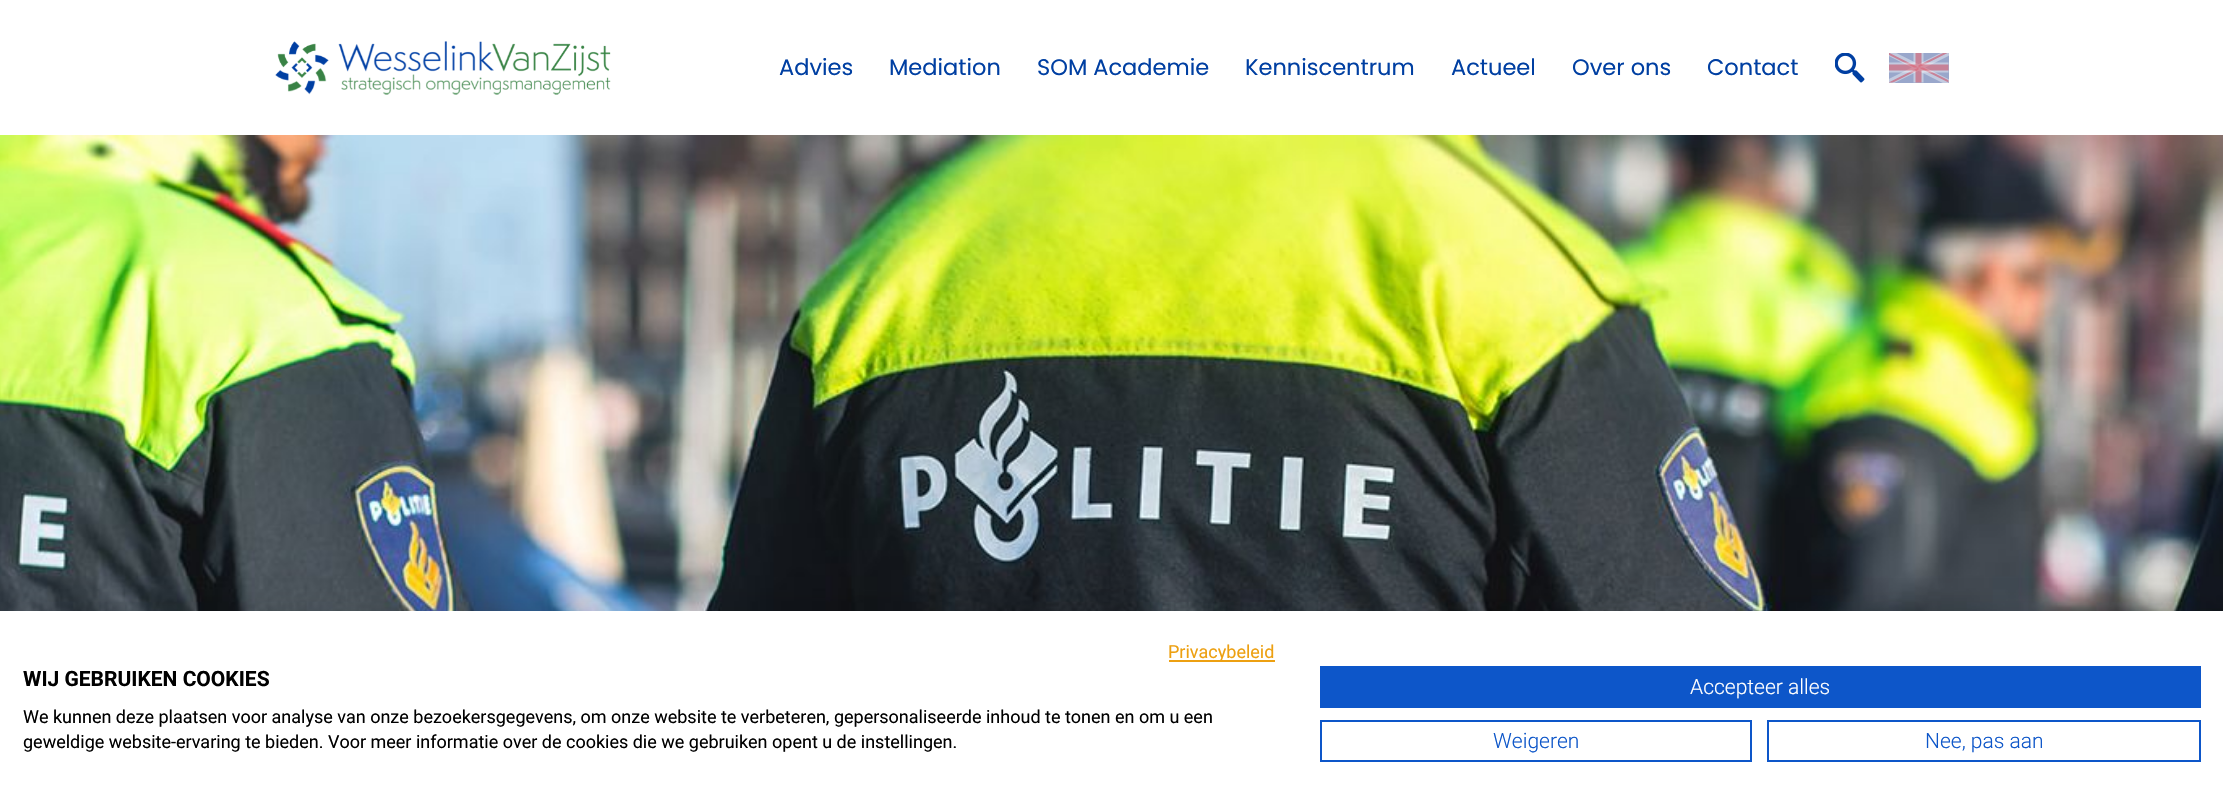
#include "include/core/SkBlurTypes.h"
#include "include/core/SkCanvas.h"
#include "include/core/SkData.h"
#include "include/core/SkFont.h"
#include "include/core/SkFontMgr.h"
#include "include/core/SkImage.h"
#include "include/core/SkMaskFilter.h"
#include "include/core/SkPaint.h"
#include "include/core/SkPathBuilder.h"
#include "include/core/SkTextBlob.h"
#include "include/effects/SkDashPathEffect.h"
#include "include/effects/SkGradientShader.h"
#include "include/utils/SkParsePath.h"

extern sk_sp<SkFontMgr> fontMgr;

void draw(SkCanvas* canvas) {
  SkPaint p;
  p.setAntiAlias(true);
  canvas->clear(SK_ColorWHITE);
  canvas->drawImageRect(SkImages::DeferredFromEncodedData(SkData::MakeFromFileName("images/1.png")), SkRect::MakeLTRB(275, 41, 611, 95), SkSamplingOptions());
  canvas->drawImageRect(SkImages::DeferredFromEncodedData(SkData::MakeFromFileName("images/2.png")), SkRect::MakeLTRB(1835, 53, 1865, 83), SkSamplingOptions());
  canvas->drawImageRect(SkImages::DeferredFromEncodedData(SkData::MakeFromFileName("images/3.png")), SkRect::MakeLTRB(1889, 53, 1949, 83), SkSamplingOptions());
  canvas->drawImageRect(SkImages::DeferredFromEncodedData(SkData::MakeFromFileName("images/4.png")), SkRect::MakeLTRB(0, 135, 2223, 611), SkSamplingOptions());
  p.setColor(SkColorSetARGB(26, 0, 0, 0));
  p.setMaskFilter(SkMaskFilter::MakeBlur(kNormal_SkBlurStyle, 18));
  canvas->drawRect(SkRect::MakeLTRB(0, 611, 2223, 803), p);
  p.setMaskFilter(nullptr);
  p.setColor(SK_ColorWHITE);
  canvas->drawRect(SkRect::MakeLTRB(0, 611, 2223, 802), p);
  p.setColor(SkColorSetRGB(237, 160, 17));
  canvas->drawRect(SkRect::MakeLTRB(1169, 660, 1275, 662), p);
  p.setColor(SkColorSetRGB(13, 86, 201));
  canvas->drawRect(SkRect::MakeLTRB(1320, 666, 2201, 708), p);
  p.setStyle(SkPaint::kStroke_Style);
  p.setStrokeWidth(2);
  canvas->drawRect(SkRect::MakeLTRB(1321, 721, 1751, 761), p);
  canvas->drawRect(SkRect::MakeLTRB(1768, 721, 2200, 761), p);
  SkFont font1(fontMgr->matchFamilyStyle("Poppins", SkFontStyle::Normal()), 22.5f);
  font1.setSubpixel(true);
  p.setStyle(SkPaint::kFill_Style);
  p.setColor(SkColorSetRGB(0, 63, 162));
  canvas->drawString("Advies", 779, 75, font1, p);
  canvas->drawString("Mediation", 889, 75, font1, p);
  canvas->drawString("SOM Academie", 1037, 75, font1, p);
  canvas->drawString("Kenniscentrum", 1245, 75, font1, p);
  canvas->drawString("Actueel", 1451, 75, font1, p);
  canvas->drawString("Over ons", 1572, 75, font1, p);
  canvas->drawString("Contact", 1707, 75, font1, p);
  SkFont font2(fontMgr->matchFamilyStyle("Roboto", SkFontStyle::Normal()), 18);
  font2.setSubpixel(true);
  p.setColor(SkColorSetRGB(237, 160, 17));
  canvas->drawString("Privacybeleid", 1168, 658, font2, p);
  SkFont font3(fontMgr->matchFamilyStyle("Roboto", SkFontStyle::Bold()), 21);
  font3.setSubpixel(true);
  p.setColor(SK_ColorBLACK);
  canvas->drawString("WIJ GEBRUIKEN COOKIES", 23, 686, font3, p);
  canvas->drawString("We kunnen deze plaatsen voor analyse van onze bezoekersgegevens, om onze website te verbeteren, gepersonaliseerde inhoud te tonen en om u een", 23, 723, font2, p);
  canvas->drawString("geweldige website-ervaring te bieden. Voor meer informatie over de cookies die we gebruiken opent u de instellingen.", 23, 748, font2, p);
  SkFont font4(fontMgr->matchFamilyStyle("Roboto", SkFontStyle(300, SkFontStyle::kNormal_Width, SkFontStyle::kUpright_Slant)), 21);
  font4.setSubpixel(true);
  p.setColor(SK_ColorWHITE);
  canvas->drawString("Accepteer alles", 1690, 694, font4, p);
  p.setColor(SkColorSetRGB(13, 86, 201));
  canvas->drawString("Weigeren", 1493, 748, font4, p);
  canvas->drawString("Nee, pas aan", 1925, 748, font4, p);
}
